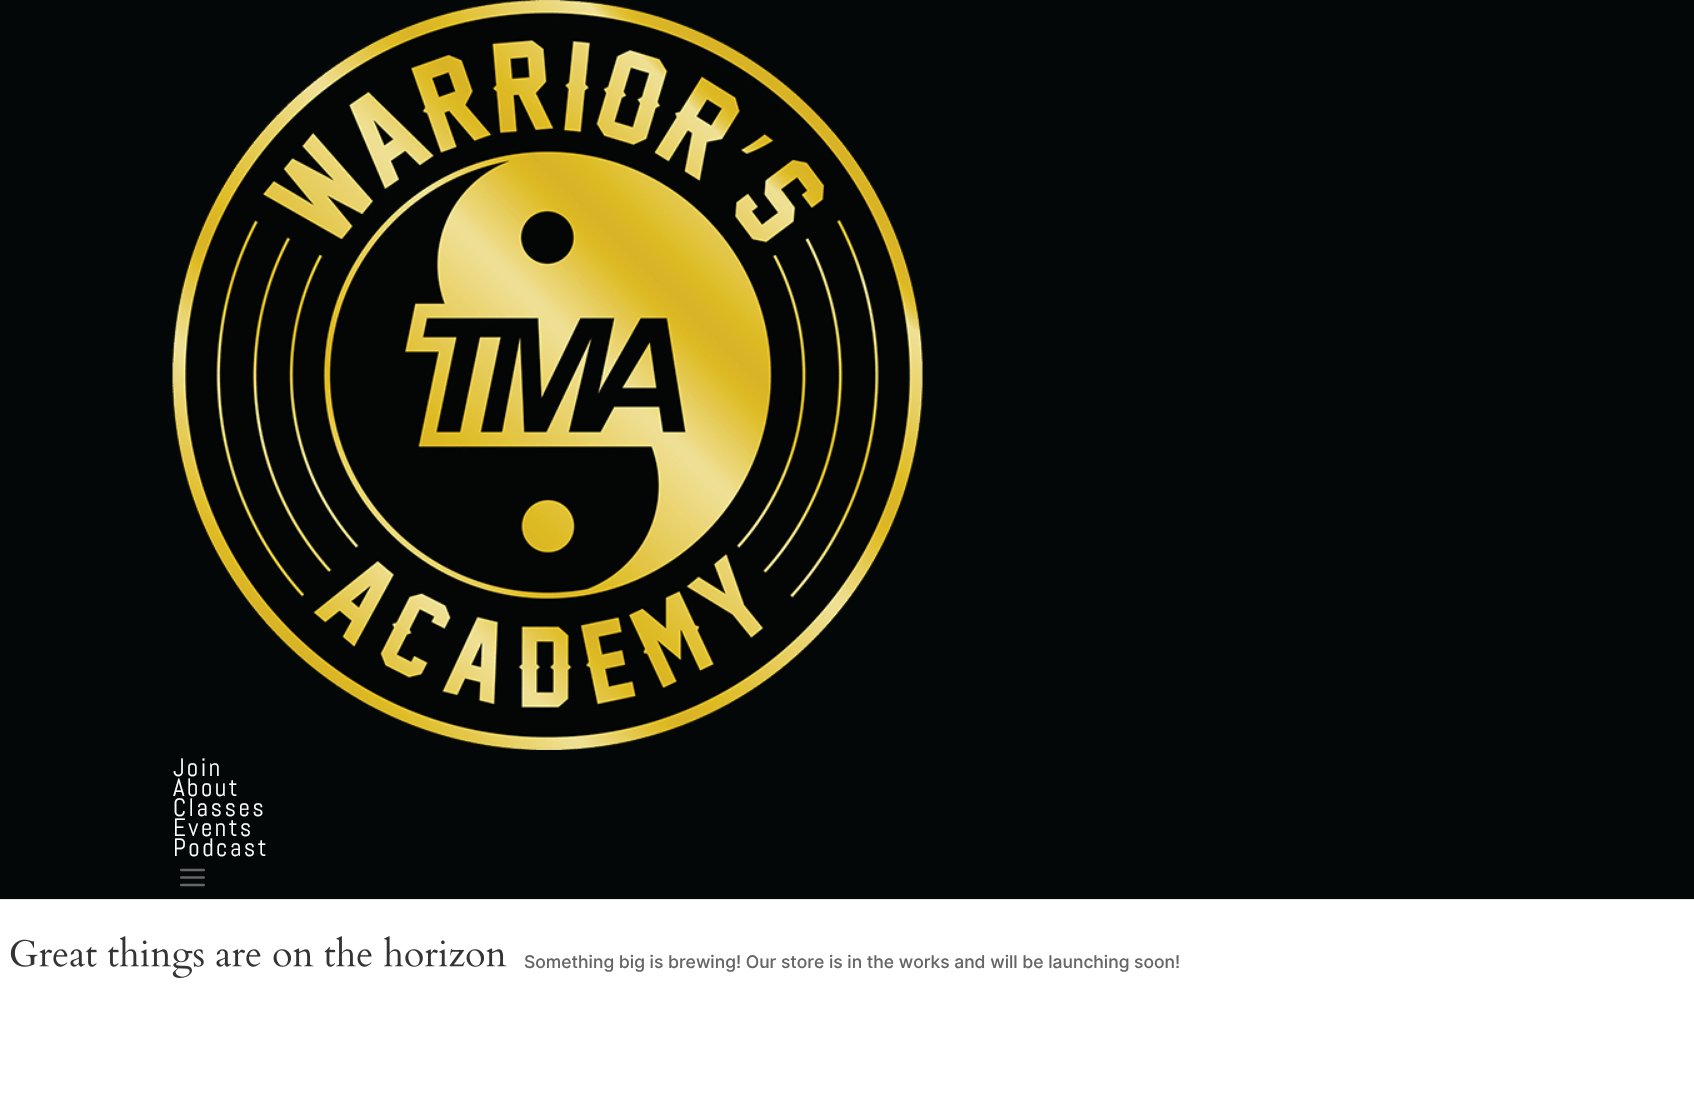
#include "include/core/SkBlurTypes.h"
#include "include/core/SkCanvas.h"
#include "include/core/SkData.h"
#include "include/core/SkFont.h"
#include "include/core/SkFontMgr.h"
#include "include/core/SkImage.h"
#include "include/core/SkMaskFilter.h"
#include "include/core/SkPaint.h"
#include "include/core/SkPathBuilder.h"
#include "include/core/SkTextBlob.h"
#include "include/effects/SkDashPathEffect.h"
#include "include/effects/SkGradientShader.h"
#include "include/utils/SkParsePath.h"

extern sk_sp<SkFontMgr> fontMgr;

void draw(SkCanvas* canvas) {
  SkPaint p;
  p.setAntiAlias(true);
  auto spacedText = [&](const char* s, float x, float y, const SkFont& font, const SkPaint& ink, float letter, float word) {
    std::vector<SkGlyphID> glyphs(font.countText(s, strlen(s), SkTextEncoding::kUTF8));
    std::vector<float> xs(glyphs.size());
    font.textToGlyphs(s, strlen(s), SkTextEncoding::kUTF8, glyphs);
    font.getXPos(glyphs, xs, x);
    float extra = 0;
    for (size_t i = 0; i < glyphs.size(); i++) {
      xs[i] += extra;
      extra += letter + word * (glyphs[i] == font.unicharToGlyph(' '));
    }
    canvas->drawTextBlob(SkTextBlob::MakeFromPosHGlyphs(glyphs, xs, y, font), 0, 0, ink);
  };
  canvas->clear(SK_ColorWHITE);
  p.setColor(SkColorSetRGB(230, 230, 230));
  canvas->drawRect(SkRect::MakeLTRB(0, 899, 1694, 900), p);
  p.setColor(SkColorSetRGB(4, 7, 7));
  canvas->drawRect(SkRect::MakeLTRB(0, 0, 1694, 899), p);
  canvas->drawImageRect(SkImages::DeferredFromEncodedData(SkData::MakeFromFileName("images/1.png")), SkRect::MakeLTRB(172, 0, 923, 750), SkSamplingOptions());
  canvas->drawImageRect(SkImages::DeferredFromEncodedData(SkData::MakeFromFileName("images/2.png")), SkRect::MakeLTRB(180, 868, 205, 887), SkSamplingOptions());
  canvas->drawImageRect(SkImages::DeferredFromEncodedData(SkData::MakeFromFileName("images/3.png")), SkRect::MakeLTRB(10, 936, 507, 978), SkSamplingOptions());
  SkFont font1(fontMgr->matchFamilyStyle("Abel", SkFontStyle::Normal()), 25);
  font1.setSubpixel(true);
  p.setColor(SK_ColorWHITE);
  spacedText("Join", 173, 776, font1, p, 2.5f, 0);
  spacedText("About", 173, 796, font1, p, 2.5f, 0);
  spacedText("Classes", 173, 816, font1, p, 2.5f, 0);
  spacedText("Events", 173, 836, font1, p, 2.5f, 0);
  spacedText("Podcast", 173, 856, font1, p, 2.5f, 0);
  SkFont font2(fontMgr->matchFamilyStyle("Inter", SkFontStyle(500, SkFontStyle::kNormal_Width, SkFontStyle::kUpright_Slant)), 17.5f);
  font2.setSubpixel(true);
  p.setColor(SkColorSetRGB(102, 102, 102));
  canvas->drawString("Something big is brewing! Our store is in the works and will be launching soon!", 524, 968, font2, p);
}
